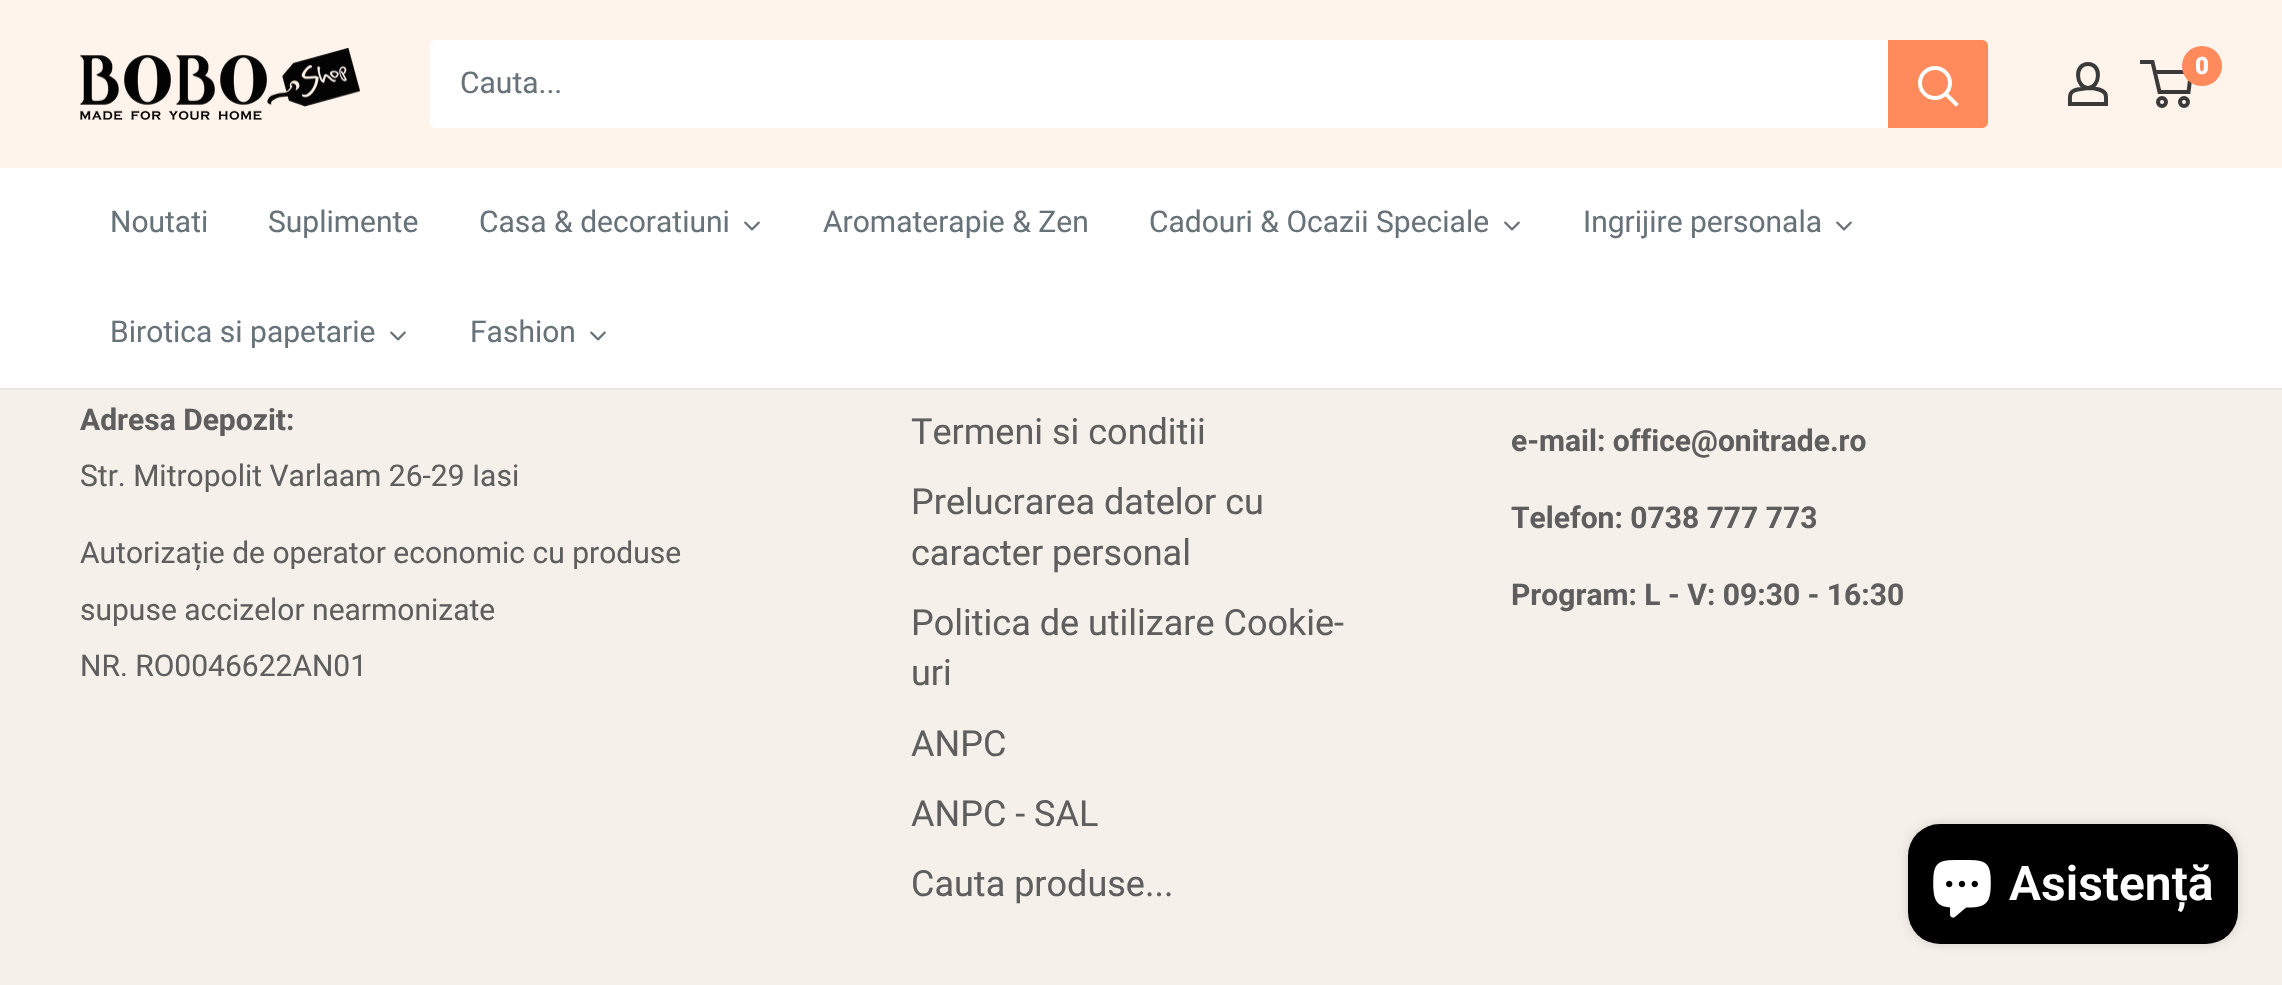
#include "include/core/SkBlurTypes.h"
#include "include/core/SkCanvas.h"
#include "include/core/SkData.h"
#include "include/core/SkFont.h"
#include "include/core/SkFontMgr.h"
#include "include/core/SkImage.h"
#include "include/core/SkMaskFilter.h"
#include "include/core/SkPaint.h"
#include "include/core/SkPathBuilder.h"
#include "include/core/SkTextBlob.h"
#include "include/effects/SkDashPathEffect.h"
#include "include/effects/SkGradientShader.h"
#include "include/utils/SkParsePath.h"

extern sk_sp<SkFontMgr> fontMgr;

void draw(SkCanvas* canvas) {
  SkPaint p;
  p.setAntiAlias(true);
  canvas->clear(SkColorSetRGB(245, 240, 234));
  p.setColor(SkColorSetRGB(255, 244, 235));
  canvas->drawRect(SkRect::MakeLTRB(0, 0, 2282, 168), p);
  canvas->drawImageRect(SkImages::DeferredFromEncodedData(SkData::MakeFromFileName("images/1.png")), SkRect::MakeLTRB(80, 48, 360, 120), SkSamplingOptions());
  p.setStyle(SkPaint::kStroke_Style);
  p.setStrokeWidth(4);
  p.setColor(SkColorSetRGB(58, 58, 58));
  canvas->drawPath(SkPathBuilder().moveTo(2088, 88).cubicTo(2092, 88, 2095.5f, 88.5f, 2099, 89.5f).cubicTo(2107.5f, 92, 2106, 96.5f, 2106, 104).lineTo(2070, 104).cubicTo(2070, 96, 2068.5f, 91.5f, 2077.5f, 89.5f).close().moveTo(2088, 88).cubicTo(2076, 88, 2073.5f, 64, 2088, 64).cubicTo(2102.5f, 64, 2100, 88, 2088, 88).close().detach(), p);
  canvas->drawCircle(2162, 102, 4, p);
  canvas->drawCircle(2184, 102, 4, p);
  canvas->drawPath(SkPathBuilder().moveTo(2154.5f, 72).lineTo(2191, 72).lineTo(2188.5f, 92).lineTo(2159.5f, 92).lineTo(2152.5f, 62).lineTo(2140, 62).detach(), p);
  p.setStyle(SkPaint::kFill_Style);
  p.setColor(SkColorSetRGB(255, 138, 92));
  canvas->drawCircle(2202, 66, 20, p);
  p.setColor(SK_ColorWHITE);
  canvas->drawRoundRect(SkRect::MakeLTRB(430, 40, 1988, 128), 6, 6, p);
  p.setColor(SkColorSetRGB(255, 138, 92));
  canvas->drawPath(SkPathBuilder().moveTo(1888, 40).lineTo(1982, 40).cubicTo(1985.5f, 40, 1988, 42.5f, 1988, 46).lineTo(1988, 122).cubicTo(1988, 125.5f, 1985.5f, 128, 1982, 128).lineTo(1888, 128).close().detach(), p);
  p.setStyle(SkPaint::kStroke_Style);
  p.setStrokeCap(SkPaint::kSquare_Cap);
  p.setColor(SK_ColorWHITE);
  canvas->drawPath(SkPathBuilder().moveTo(1956, 104).lineTo(1946, 94).detach(), p);
  p.setStrokeCap(SkPaint::kButt_Cap);
  canvas->drawCircle(1935, 83, 15, p);
  p.setStyle(SkPaint::kFill_Style);
  canvas->drawRect(SkRect::MakeLTRB(0, 168, 2282, 388), p);
  p.setColor(SkColorSetRGB(232, 230, 225));
  canvas->drawRect(SkRect::MakeLTRB(0, 388, 2282, 390), p);
  canvas->drawImageRect(SkImages::DeferredFromEncodedData(SkData::MakeFromFileName("images/2.png")), SkRect::MakeLTRB(744, 221, 760, 231), SkSamplingOptions());
  canvas->drawImageRect(SkImages::DeferredFromEncodedData(SkData::MakeFromFileName("images/2.png")), SkRect::MakeLTRB(1504, 221, 1520, 231), SkSamplingOptions());
  canvas->drawImageRect(SkImages::DeferredFromEncodedData(SkData::MakeFromFileName("images/2.png")), SkRect::MakeLTRB(1836, 221, 1852, 231), SkSamplingOptions());
  canvas->drawImageRect(SkImages::DeferredFromEncodedData(SkData::MakeFromFileName("images/2.png")), SkRect::MakeLTRB(390, 331, 406, 341), SkSamplingOptions());
  canvas->drawImageRect(SkImages::DeferredFromEncodedData(SkData::MakeFromFileName("images/2.png")), SkRect::MakeLTRB(590, 331, 606, 341), SkSamplingOptions());
  p.setColor(SkColorSetARGB(38, 0, 0, 0));
  p.setMaskFilter(SkMaskFilter::MakeBlur(kNormal_SkBlurStyle, 5));
  canvas->drawRoundRect(SkRect::MakeLTRB(1908, 824, 2238, 944), 32, 32, p);
  p.setMaskFilter(nullptr);
  p.setColor(SK_ColorBLACK);
  canvas->drawRoundRect(SkRect::MakeLTRB(1908, 824, 2238, 944), 32, 32, p);
  canvas->drawImageRect(SkImages::DeferredFromEncodedData(SkData::MakeFromFileName("images/3.png")), SkRect::MakeLTRB(1933, 860, 1991, 918), SkSamplingOptions());
  SkFont font1(fontMgr->matchFamilyStyle("Roboto", SkFontStyle(900, SkFontStyle::kNormal_Width, SkFontStyle::kUpright_Slant)), 24);
  font1.setSubpixel(true);
  p.setColor(SK_ColorWHITE);
  canvas->drawString("0", 2195, 74, font1, p);
  SkFont font2(fontMgr->matchFamilyStyle("Roboto", SkFontStyle::Normal()), 30);
  font2.setSubpixel(true);
  p.setColor(SkColorSetRGB(103, 114, 121));
  canvas->drawString("Cauta...", 460, 93, font2, p);
  canvas->drawString("Noutati", 110, 232, font2, p);
  canvas->drawString("Suplimente", 268, 232, font2, p);
  canvas->drawString("Casa & decoratiuni", 479, 232, font2, p);
  canvas->drawString("Aromaterapie & Zen", 823, 232, font2, p);
  canvas->drawString("Cadouri & Ocazii Speciale", 1149, 232, font2, p);
  canvas->drawString("Ingrijire personala", 1583, 232, font2, p);
  canvas->drawString("Birotica si papetarie", 110, 342, font2, p);
  canvas->drawString("Fashion", 470, 342, font2, p);
  SkFont font3(fontMgr->matchFamilyStyle("Roboto", SkFontStyle::Bold()), 30);
  font3.setSubpixel(true);
  p.setColor(SkColorSetRGB(94, 94, 94));
  canvas->drawString("Adresa Depozit:", 80, 430, font3, p);
  canvas->drawString("Str. Mitropolit Varlaam 26-29 Iasi", 80, 486, font2, p);
  canvas->drawString("Autorizație de operator economic cu produse", 80, 563, font2, p);
  canvas->drawString("supuse accizelor nearmonizate", 80, 620, font2, p);
  canvas->drawString("NR. RO0046622AN01", 80, 676, font2, p);
  SkFont font4(fontMgr->matchFamilyStyle("Roboto", SkFontStyle::Normal()), 36);
  font4.setSubpixel(true);
  canvas->drawString("Termeni si conditii", 911, 444, font4, p);
  canvas->drawString("Prelucrarea datelor cu", 911, 514, font4, p);
  canvas->drawString("caracter personal", 911, 565, font4, p);
  canvas->drawString("Politica de utilizare Cookie-", 911, 635, font4, p);
  canvas->drawString("uri", 911, 685, font4, p);
  canvas->drawString("ANPC", 911, 756, font4, p);
  canvas->drawString("ANPC - SAL", 911, 826, font4, p);
  canvas->drawString("Cauta produse...", 911, 896, font4, p);
  canvas->drawString("e-mail: office@onitrade.ro", 1511, 451, font3, p);
  canvas->drawString("Telefon: 0738 777 773", 1511, 528, font3, p);
  canvas->drawString("Program: L - V: 09:30 - 16:30", 1511, 605, font3, p);
  SkFont font5(fontMgr->matchFamilyStyle("Roboto", SkFontStyle(600, SkFontStyle::kNormal_Width, SkFontStyle::kUpright_Slant)), 48);
  font5.setSubpixel(true);
  p.setColor(SK_ColorWHITE);
  canvas->drawString("Asistență", 2009, 900, font5, p);
}
